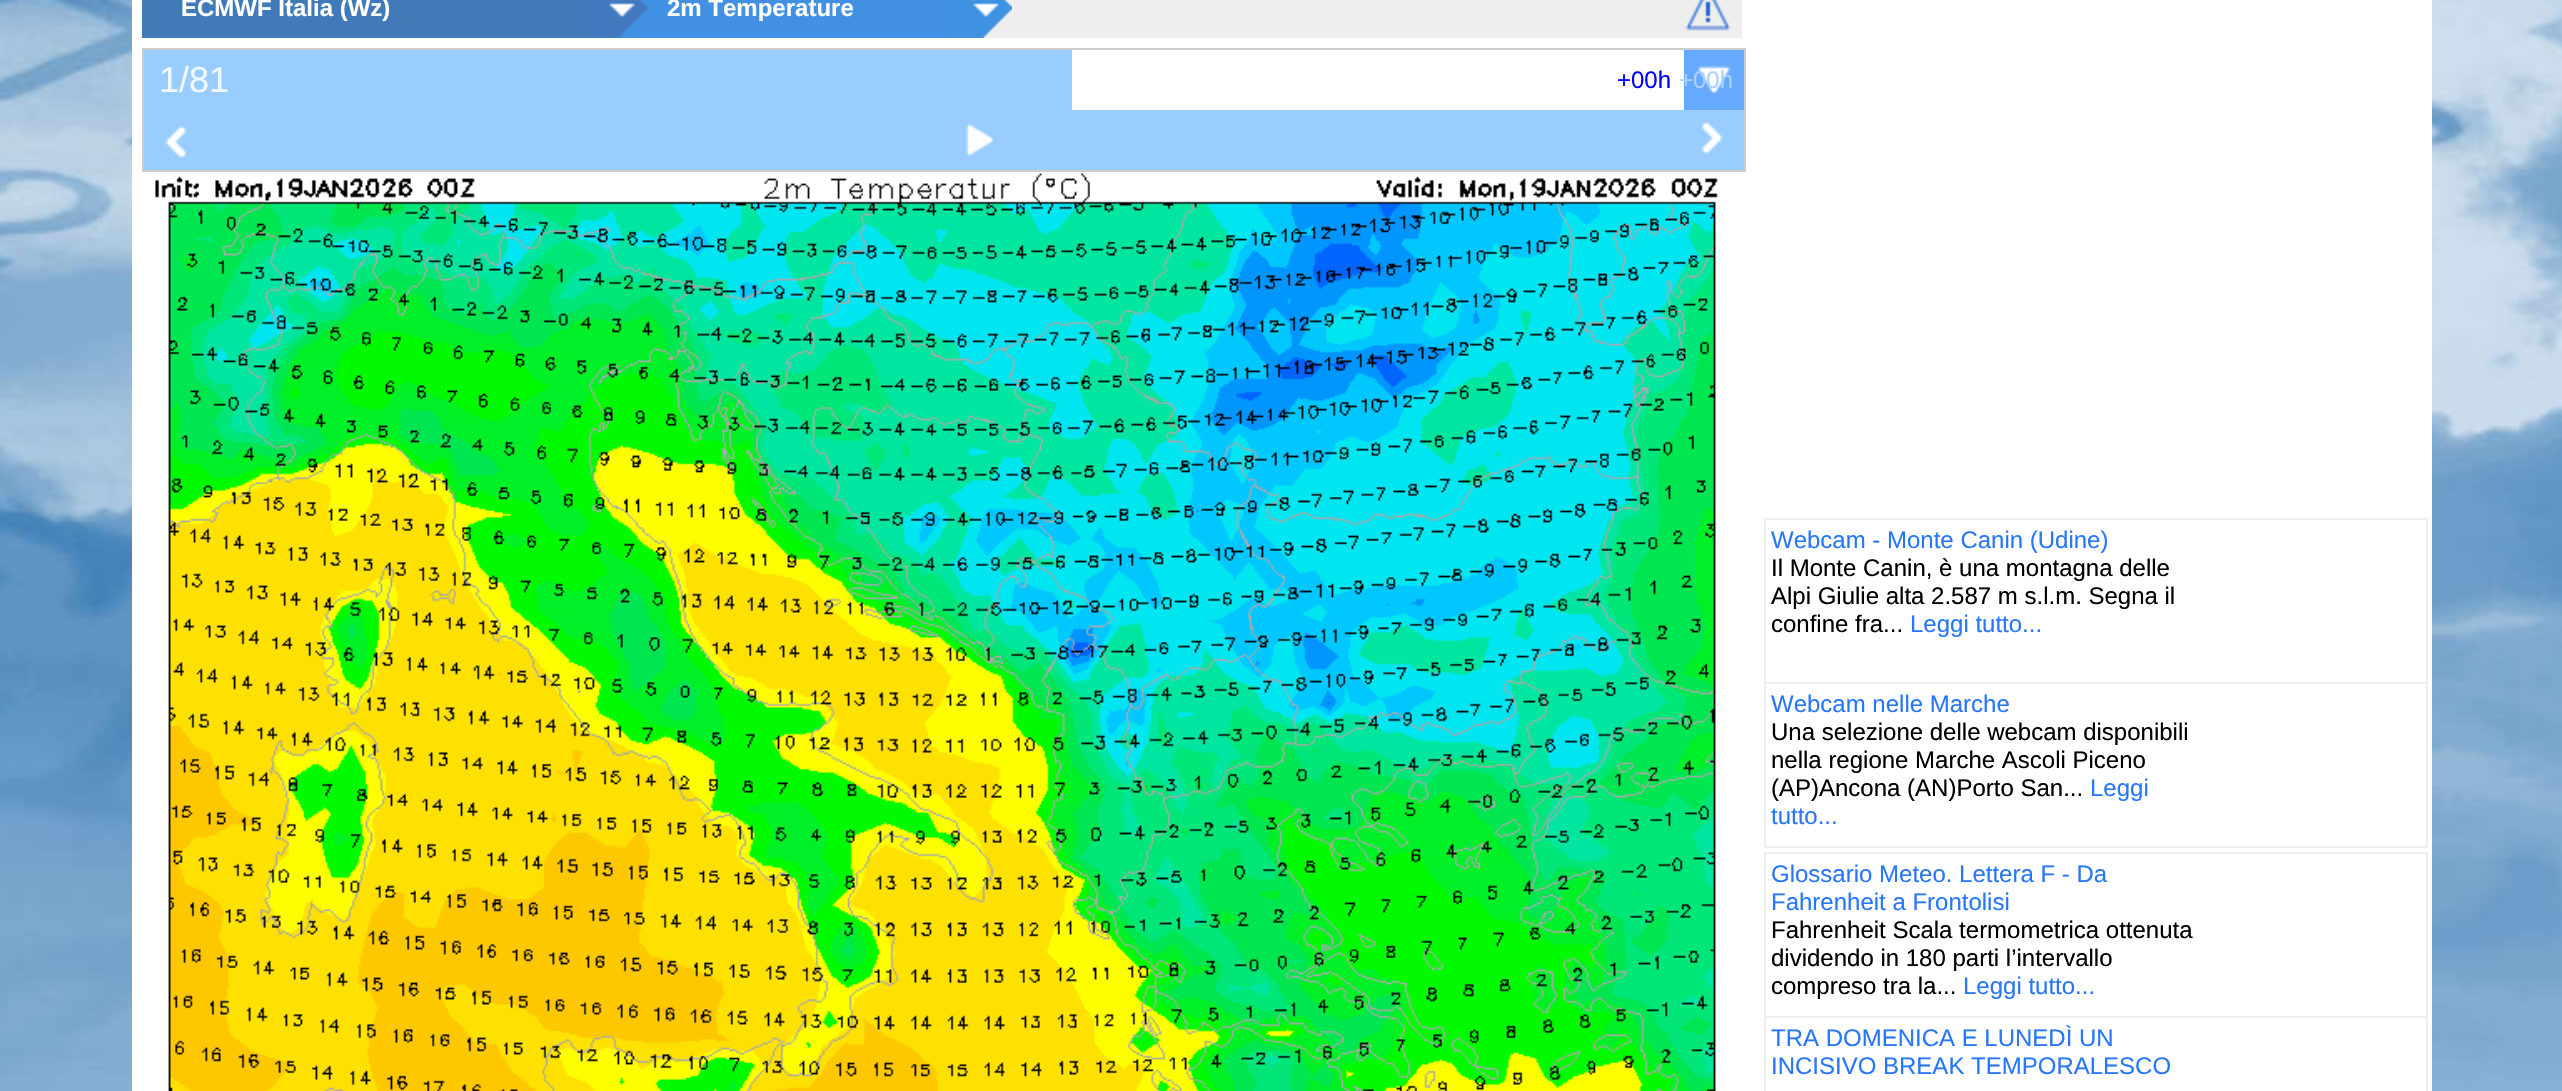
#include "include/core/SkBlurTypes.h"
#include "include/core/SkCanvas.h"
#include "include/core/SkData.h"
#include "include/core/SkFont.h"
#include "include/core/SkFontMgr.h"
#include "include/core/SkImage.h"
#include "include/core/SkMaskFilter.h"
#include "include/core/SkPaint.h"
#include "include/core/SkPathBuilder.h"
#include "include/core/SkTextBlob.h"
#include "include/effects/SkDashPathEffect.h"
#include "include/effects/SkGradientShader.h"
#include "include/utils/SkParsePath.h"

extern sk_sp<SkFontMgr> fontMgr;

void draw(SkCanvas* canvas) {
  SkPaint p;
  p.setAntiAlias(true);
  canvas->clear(SK_ColorWHITE);
  canvas->drawImageRect(SkImages::DeferredFromEncodedData(SkData::MakeFromFileName("images/1.png")), SkRect::MakeLTRB(0, 0, 2562, 1091), SkSamplingOptions());
  p.setColor(SK_ColorWHITE);
  canvas->drawRect(SkRect::MakeLTRB(132, 0, 2432, 1091), p);
  p.setColor(SkColorSetRGB(238, 238, 238));
  canvas->drawRect(SkRect::MakeLTRB(617, 0, 1742, 38), p);
  p.setColor(SkColorSetRGB(66, 144, 227));
  canvas->drawRect(SkRect::MakeLTRB(618, 0, 952, 38), p);
  canvas->drawImageRect(SkImages::DeferredFromEncodedData(SkData::MakeFromFileName("images/2.png")), SkRect::MakeLTRB(588, 0, 648, 38), SkSamplingOptions());
  p.setColor(SkColorSetRGB(64, 122, 185));
  canvas->drawRect(SkRect::MakeLTRB(142, 0, 588, 38), p);
  canvas->drawImageRect(SkImages::DeferredFromEncodedData(SkData::MakeFromFileName("images/3.png")), SkRect::MakeLTRB(952, 0, 1012, 38), SkSamplingOptions());
  canvas->drawImageRect(SkImages::DeferredFromEncodedData(SkData::MakeFromFileName("images/4.png")), SkRect::MakeLTRB(1685, 0, 1731, 31), SkSamplingOptions());
  p.setColor(SkColorSetRGB(153, 204, 255));
  canvas->drawRect(SkRect::MakeLTRB(143, 49, 1745, 171), p);
  p.setStyle(SkPaint::kStroke_Style);
  p.setStrokeWidth(2);
  p.setColor(SkColorSetRGB(204, 204, 204));
  canvas->drawRect(SkRect::MakeLTRB(143, 49, 1745, 171), p);
  p.setStyle(SkPaint::kFill_Style);
  p.setColor(SK_ColorWHITE);
  canvas->drawRect(SkRect::MakeLTRB(1072, 50, 1684, 110), p);
  p.setColor(SkColorSetRGB(102, 170, 255));
  canvas->drawRect(SkRect::MakeLTRB(1684, 50, 1744, 110), p);
  canvas->drawImageRect(SkImages::DeferredFromEncodedData(SkData::MakeFromFileName("images/5.png")), SkRect::MakeLTRB(1697, 65, 1731, 94), SkSamplingOptions());
  canvas->drawImageRect(SkImages::DeferredFromEncodedData(SkData::MakeFromFileName("images/6.png")), SkRect::MakeLTRB(165, 125, 187, 159), SkSamplingOptions());
  canvas->drawImageRect(SkImages::DeferredFromEncodedData(SkData::MakeFromFileName("images/7.png")), SkRect::MakeLTRB(965, 123, 994, 157), SkSamplingOptions());
  canvas->drawImageRect(SkImages::DeferredFromEncodedData(SkData::MakeFromFileName("images/8.png")), SkRect::MakeLTRB(1701, 121, 1723, 155), SkSamplingOptions());
  canvas->drawImageRect(SkImages::DeferredFromEncodedData(SkData::MakeFromFileName("images/9.png")), SkRect::MakeLTRB(155, 173, 1718, 1091), SkSamplingOptions());
  p.setColor(SkColorSetRGB(239, 239, 239));
  canvas->drawRect(SkRect::MakeLTRB(1764, 518, 2428, 520), p);
  canvas->drawRect(SkRect::MakeLTRB(2426, 520, 2428, 848), p);
  canvas->drawRect(SkRect::MakeLTRB(1764, 682, 2428, 684), p);
  canvas->drawRect(SkRect::MakeLTRB(1764, 520, 1766, 684), p);
  canvas->drawRect(SkRect::MakeLTRB(1764, 846, 2428, 848), p);
  canvas->drawRect(SkRect::MakeLTRB(1764, 684, 1766, 848), p);
  canvas->drawRect(SkRect::MakeLTRB(1764, 852, 2428, 854), p);
  canvas->drawRect(SkRect::MakeLTRB(2426, 854, 2428, 1091), p);
  canvas->drawRect(SkRect::MakeLTRB(1764, 1016, 2428, 1018), p);
  canvas->drawRect(SkRect::MakeLTRB(1764, 854, 1766, 1091), p);
  SkFont font1(fontMgr->matchFamilyStyle("Liberation Sans", SkFontStyle::Bold()), 24);
  font1.setSubpixel(true);
  p.setColor(SK_ColorWHITE);
  canvas->drawString("ECMWF Italia (Wz)", 181, 16, font1, p);
  canvas->drawString("2m Temperature", 667, 16, font1, p);
  SkFont font2(fontMgr->matchFamilyStyle("Liberation Sans", SkFontStyle::Normal()), 36);
  font2.setSubpixel(true);
  p.setColor(SkColorSetRGB(240, 249, 255));
  canvas->drawString("1/81", 159, 92, font2, p);
  SkFont font3(fontMgr->matchFamilyStyle("Liberation Sans", SkFontStyle::Normal()), 24);
  font3.setSubpixel(true);
  p.setColor(SkColorSetRGB(0, 0, 255));
  canvas->drawString("+00h", 1617, 88, font3, p);
  p.setColor(SkColorSetRGB(172, 209, 255));
  canvas->drawString("+00h", 1679, 88, font3, p);
  p.setColor(SkColorSetRGB(38, 118, 255));
  canvas->drawString("Webcam - Monte Canin (Udine)", 1771, 548, font3, p);
  p.setColor(SK_ColorBLACK);
  canvas->drawString("Il Monte Canin, è una montagna delle", 1771, 576, font3, p);
  canvas->drawString("Alpi Giulie alta 2.587 m s.l.m. Segna il", 1771, 604, font3, p);
  canvas->drawString("confine fra...", 1771, 632, font3, p);
  p.setColor(SkColorSetRGB(38, 118, 255));
  canvas->drawString("Leggi tutto...", 1910, 632, font3, p);
  canvas->drawString("Webcam nelle Marche", 1771, 712, font3, p);
  p.setColor(SK_ColorBLACK);
  canvas->drawString("Una selezione delle webcam disponibili", 1771, 740, font3, p);
  canvas->drawString("nella regione Marche Ascoli Piceno", 1771, 768, font3, p);
  canvas->drawString("(AP)Ancona (AN)Porto San...", 1771, 796, font3, p);
  p.setColor(SkColorSetRGB(38, 118, 255));
  canvas->drawString("Leggi", 2090, 796, font3, p);
  canvas->drawString("tutto...", 1771, 824, font3, p);
  canvas->drawString("Glossario Meteo. Lettera F - Da", 1771, 882, font3, p);
  canvas->drawString("Fahrenheit a Frontolisi", 1771, 910, font3, p);
  p.setColor(SK_ColorBLACK);
  canvas->drawString("Fahrenheit Scala termometrica ottenuta", 1771, 938, font3, p);
  canvas->drawString("dividendo in 180 parti l’intervallo", 1771, 966, font3, p);
  canvas->drawString("compreso tra la...", 1771, 994, font3, p);
  p.setColor(SkColorSetRGB(38, 118, 255));
  canvas->drawString("Leggi tutto...", 1963, 994, font3, p);
  canvas->drawString("TRA DOMENICA E LUNEDÌ UN", 1771, 1046, font3, p);
  canvas->drawString("INCISIVO BREAK TEMPORALESCO", 1771, 1074, font3, p);
}
